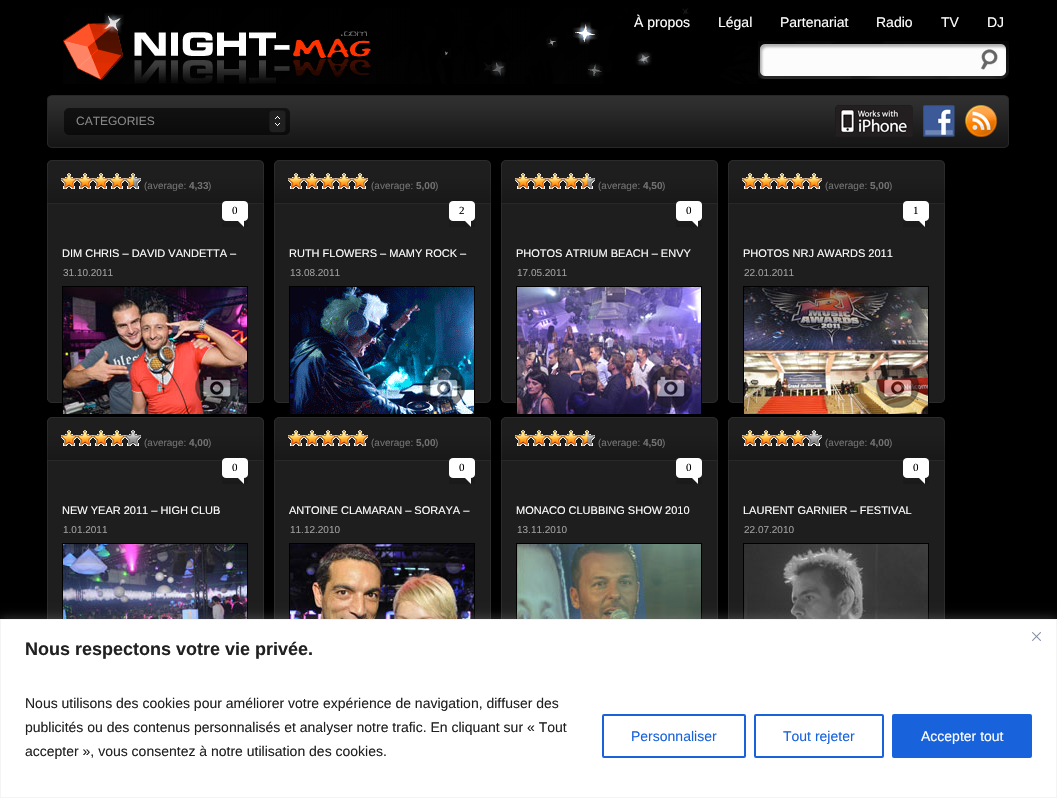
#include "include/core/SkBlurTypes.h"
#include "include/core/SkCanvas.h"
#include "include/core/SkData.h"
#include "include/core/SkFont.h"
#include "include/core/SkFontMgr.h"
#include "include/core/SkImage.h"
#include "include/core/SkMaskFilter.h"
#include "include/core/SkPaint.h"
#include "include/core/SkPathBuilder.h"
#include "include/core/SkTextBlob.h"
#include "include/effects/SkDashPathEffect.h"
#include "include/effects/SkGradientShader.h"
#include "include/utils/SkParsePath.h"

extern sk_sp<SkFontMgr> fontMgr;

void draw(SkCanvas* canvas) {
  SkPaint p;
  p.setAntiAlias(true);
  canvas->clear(SK_ColorBLACK);
  canvas->drawImageRect(SkImages::DeferredFromEncodedData(SkData::MakeFromFileName("images/1.png")), SkRect::MakeLTRB(63, 8, 758, 84), SkSamplingOptions());
  canvas->drawImageRect(SkImages::DeferredFromEncodedData(SkData::MakeFromFileName("images/2.png")), SkRect::MakeLTRB(758, 41, 1009, 79), SkSamplingOptions());
  canvas->drawImageRect(SkImages::DeferredFromEncodedData(SkData::MakeFromFileName("images/3.png")), SkRect::MakeLTRB(980, 49, 998, 70), SkSamplingOptions());
  canvas->drawImageRect(SkImages::DeferredFromEncodedData(SkData::MakeFromFileName("images/4.png")), SkRect::MakeLTRB(47, 96, 1009, 148), SkSamplingOptions());
  p.setStyle(SkPaint::kStroke_Style);
  p.setStrokeWidth(1);
  p.setColor(SkColorSetRGB(39, 39, 39));
  canvas->drawRoundRect(SkRect::MakeLTRB(47.5f, 95.5f, 1008.5f, 147.5f), 4.5f, 4.5f, p);
  canvas->drawImageRect(SkImages::DeferredFromEncodedData(SkData::MakeFromFileName("images/5.png")), SkRect::MakeLTRB(64, 108, 290, 135), SkSamplingOptions());
  canvas->drawImageRect(SkImages::DeferredFromEncodedData(SkData::MakeFromFileName("images/6.png")), SkRect::MakeLTRB(835, 105, 913, 137), SkSamplingOptions());
  canvas->drawImageRect(SkImages::DeferredFromEncodedData(SkData::MakeFromFileName("images/7.png")), SkRect::MakeLTRB(923, 105, 955, 137), SkSamplingOptions());
  canvas->drawImageRect(SkImages::DeferredFromEncodedData(SkData::MakeFromFileName("images/8.png")), SkRect::MakeLTRB(965, 105, 997, 137), SkSamplingOptions());
  canvas->drawImageRect(SkImages::DeferredFromEncodedData(SkData::MakeFromFileName("images/9.png")), SkRect::MakeLTRB(47, 160, 264, 403), SkSamplingOptions());
  canvas->drawImageRect(SkImages::DeferredFromEncodedData(SkData::MakeFromFileName("images/10.png")), SkRect::MakeLTRB(61, 173, 77, 189), SkSamplingOptions());
  canvas->drawImageRect(SkImages::DeferredFromEncodedData(SkData::MakeFromFileName("images/10.png")), SkRect::MakeLTRB(77, 173, 93, 189), SkSamplingOptions());
  canvas->drawImageRect(SkImages::DeferredFromEncodedData(SkData::MakeFromFileName("images/10.png")), SkRect::MakeLTRB(93, 173, 109, 189), SkSamplingOptions());
  canvas->drawImageRect(SkImages::DeferredFromEncodedData(SkData::MakeFromFileName("images/10.png")), SkRect::MakeLTRB(109, 173, 125, 189), SkSamplingOptions());
  canvas->drawImageRect(SkImages::DeferredFromEncodedData(SkData::MakeFromFileName("images/11.png")), SkRect::MakeLTRB(125, 173, 141, 189), SkSamplingOptions());
  canvas->drawImageRect(SkImages::DeferredFromEncodedData(SkData::MakeFromFileName("images/12.png")), SkRect::MakeLTRB(222, 201, 248, 227), SkSamplingOptions());
  p.setColor(SK_ColorBLACK);
  canvas->drawRect(SkRect::MakeLTRB(62.5f, 286.5f, 247.5f, 414.5f), p);
  canvas->drawImageRect(SkImages::DeferredFromEncodedData(SkData::MakeFromFileName("images/13.png")), SkRect::MakeLTRB(63, 287, 247, 414), SkSamplingOptions());
  canvas->drawImageRect(SkImages::DeferredFromEncodedData(SkData::MakeFromFileName("images/14.png")), SkRect::MakeLTRB(195, 365, 238, 408), SkSamplingOptions());
  canvas->drawImageRect(SkImages::DeferredFromEncodedData(SkData::MakeFromFileName("images/9.png")), SkRect::MakeLTRB(274, 160, 491, 403), SkSamplingOptions());
  canvas->drawImageRect(SkImages::DeferredFromEncodedData(SkData::MakeFromFileName("images/10.png")), SkRect::MakeLTRB(288, 173, 304, 189), SkSamplingOptions());
  canvas->drawImageRect(SkImages::DeferredFromEncodedData(SkData::MakeFromFileName("images/10.png")), SkRect::MakeLTRB(304, 173, 320, 189), SkSamplingOptions());
  canvas->drawImageRect(SkImages::DeferredFromEncodedData(SkData::MakeFromFileName("images/10.png")), SkRect::MakeLTRB(320, 173, 336, 189), SkSamplingOptions());
  canvas->drawImageRect(SkImages::DeferredFromEncodedData(SkData::MakeFromFileName("images/10.png")), SkRect::MakeLTRB(336, 173, 352, 189), SkSamplingOptions());
  canvas->drawImageRect(SkImages::DeferredFromEncodedData(SkData::MakeFromFileName("images/10.png")), SkRect::MakeLTRB(352, 173, 368, 189), SkSamplingOptions());
  canvas->drawImageRect(SkImages::DeferredFromEncodedData(SkData::MakeFromFileName("images/12.png")), SkRect::MakeLTRB(449, 201, 475, 227), SkSamplingOptions());
  canvas->drawRect(SkRect::MakeLTRB(289.5f, 286.5f, 474.5f, 414.5f), p);
  canvas->drawImageRect(SkImages::DeferredFromEncodedData(SkData::MakeFromFileName("images/15.png")), SkRect::MakeLTRB(290, 287, 474, 414), SkSamplingOptions());
  canvas->drawImageRect(SkImages::DeferredFromEncodedData(SkData::MakeFromFileName("images/16.png")), SkRect::MakeLTRB(422, 365, 465, 408), SkSamplingOptions());
  canvas->drawImageRect(SkImages::DeferredFromEncodedData(SkData::MakeFromFileName("images/9.png")), SkRect::MakeLTRB(501, 160, 718, 403), SkSamplingOptions());
  canvas->drawImageRect(SkImages::DeferredFromEncodedData(SkData::MakeFromFileName("images/10.png")), SkRect::MakeLTRB(515, 173, 531, 189), SkSamplingOptions());
  canvas->drawImageRect(SkImages::DeferredFromEncodedData(SkData::MakeFromFileName("images/10.png")), SkRect::MakeLTRB(531, 173, 547, 189), SkSamplingOptions());
  canvas->drawImageRect(SkImages::DeferredFromEncodedData(SkData::MakeFromFileName("images/10.png")), SkRect::MakeLTRB(547, 173, 563, 189), SkSamplingOptions());
  canvas->drawImageRect(SkImages::DeferredFromEncodedData(SkData::MakeFromFileName("images/10.png")), SkRect::MakeLTRB(563, 173, 579, 189), SkSamplingOptions());
  canvas->drawImageRect(SkImages::DeferredFromEncodedData(SkData::MakeFromFileName("images/11.png")), SkRect::MakeLTRB(579, 173, 595, 189), SkSamplingOptions());
  canvas->drawImageRect(SkImages::DeferredFromEncodedData(SkData::MakeFromFileName("images/12.png")), SkRect::MakeLTRB(676, 201, 702, 227), SkSamplingOptions());
  canvas->drawRect(SkRect::MakeLTRB(516.5f, 286.5f, 701.5f, 414.5f), p);
  canvas->drawImageRect(SkImages::DeferredFromEncodedData(SkData::MakeFromFileName("images/17.png")), SkRect::MakeLTRB(517, 287, 701, 414), SkSamplingOptions());
  canvas->drawImageRect(SkImages::DeferredFromEncodedData(SkData::MakeFromFileName("images/18.png")), SkRect::MakeLTRB(649, 365, 692, 408), SkSamplingOptions());
  canvas->drawImageRect(SkImages::DeferredFromEncodedData(SkData::MakeFromFileName("images/9.png")), SkRect::MakeLTRB(728, 160, 945, 403), SkSamplingOptions());
  canvas->drawImageRect(SkImages::DeferredFromEncodedData(SkData::MakeFromFileName("images/10.png")), SkRect::MakeLTRB(742, 173, 758, 189), SkSamplingOptions());
  canvas->drawImageRect(SkImages::DeferredFromEncodedData(SkData::MakeFromFileName("images/10.png")), SkRect::MakeLTRB(758, 173, 774, 189), SkSamplingOptions());
  canvas->drawImageRect(SkImages::DeferredFromEncodedData(SkData::MakeFromFileName("images/10.png")), SkRect::MakeLTRB(774, 173, 790, 189), SkSamplingOptions());
  canvas->drawImageRect(SkImages::DeferredFromEncodedData(SkData::MakeFromFileName("images/10.png")), SkRect::MakeLTRB(790, 173, 806, 189), SkSamplingOptions());
  canvas->drawImageRect(SkImages::DeferredFromEncodedData(SkData::MakeFromFileName("images/10.png")), SkRect::MakeLTRB(806, 173, 822, 189), SkSamplingOptions());
  canvas->drawImageRect(SkImages::DeferredFromEncodedData(SkData::MakeFromFileName("images/12.png")), SkRect::MakeLTRB(903, 201, 929, 227), SkSamplingOptions());
  canvas->drawRect(SkRect::MakeLTRB(743.5f, 286.5f, 928.5f, 414.5f), p);
  canvas->drawImageRect(SkImages::DeferredFromEncodedData(SkData::MakeFromFileName("images/19.png")), SkRect::MakeLTRB(744, 287, 928, 414), SkSamplingOptions());
  canvas->drawImageRect(SkImages::DeferredFromEncodedData(SkData::MakeFromFileName("images/20.png")), SkRect::MakeLTRB(876, 365, 919, 408), SkSamplingOptions());
  canvas->drawImageRect(SkImages::DeferredFromEncodedData(SkData::MakeFromFileName("images/21.png")), SkRect::MakeLTRB(47, 417, 264, 619), SkSamplingOptions());
  canvas->drawImageRect(SkImages::DeferredFromEncodedData(SkData::MakeFromFileName("images/10.png")), SkRect::MakeLTRB(61, 430, 77, 446), SkSamplingOptions());
  canvas->drawImageRect(SkImages::DeferredFromEncodedData(SkData::MakeFromFileName("images/10.png")), SkRect::MakeLTRB(77, 430, 93, 446), SkSamplingOptions());
  canvas->drawImageRect(SkImages::DeferredFromEncodedData(SkData::MakeFromFileName("images/10.png")), SkRect::MakeLTRB(93, 430, 109, 446), SkSamplingOptions());
  canvas->drawImageRect(SkImages::DeferredFromEncodedData(SkData::MakeFromFileName("images/10.png")), SkRect::MakeLTRB(109, 430, 125, 446), SkSamplingOptions());
  canvas->drawImageRect(SkImages::DeferredFromEncodedData(SkData::MakeFromFileName("images/22.png")), SkRect::MakeLTRB(125, 430, 141, 446), SkSamplingOptions());
  canvas->drawImageRect(SkImages::DeferredFromEncodedData(SkData::MakeFromFileName("images/12.png")), SkRect::MakeLTRB(222, 458, 248, 484), SkSamplingOptions());
  canvas->drawRect(SkRect::MakeLTRB(62.5f, 543.5f, 247.5f, 671.5f), p);
  canvas->drawImageRect(SkImages::DeferredFromEncodedData(SkData::MakeFromFileName("images/23.png")), SkRect::MakeLTRB(63, 544, 247, 619), SkSamplingOptions());
  canvas->drawImageRect(SkImages::DeferredFromEncodedData(SkData::MakeFromFileName("images/21.png")), SkRect::MakeLTRB(274, 417, 491, 619), SkSamplingOptions());
  canvas->drawImageRect(SkImages::DeferredFromEncodedData(SkData::MakeFromFileName("images/10.png")), SkRect::MakeLTRB(288, 430, 304, 446), SkSamplingOptions());
  canvas->drawImageRect(SkImages::DeferredFromEncodedData(SkData::MakeFromFileName("images/10.png")), SkRect::MakeLTRB(304, 430, 320, 446), SkSamplingOptions());
  canvas->drawImageRect(SkImages::DeferredFromEncodedData(SkData::MakeFromFileName("images/10.png")), SkRect::MakeLTRB(320, 430, 336, 446), SkSamplingOptions());
  canvas->drawImageRect(SkImages::DeferredFromEncodedData(SkData::MakeFromFileName("images/10.png")), SkRect::MakeLTRB(336, 430, 352, 446), SkSamplingOptions());
  canvas->drawImageRect(SkImages::DeferredFromEncodedData(SkData::MakeFromFileName("images/10.png")), SkRect::MakeLTRB(352, 430, 368, 446), SkSamplingOptions());
  canvas->drawImageRect(SkImages::DeferredFromEncodedData(SkData::MakeFromFileName("images/12.png")), SkRect::MakeLTRB(449, 458, 475, 484), SkSamplingOptions());
  canvas->drawRect(SkRect::MakeLTRB(289.5f, 543.5f, 474.5f, 671.5f), p);
  canvas->drawImageRect(SkImages::DeferredFromEncodedData(SkData::MakeFromFileName("images/24.png")), SkRect::MakeLTRB(290, 544, 474, 619), SkSamplingOptions());
  canvas->drawImageRect(SkImages::DeferredFromEncodedData(SkData::MakeFromFileName("images/21.png")), SkRect::MakeLTRB(501, 417, 718, 619), SkSamplingOptions());
  canvas->drawImageRect(SkImages::DeferredFromEncodedData(SkData::MakeFromFileName("images/10.png")), SkRect::MakeLTRB(515, 430, 531, 446), SkSamplingOptions());
  canvas->drawImageRect(SkImages::DeferredFromEncodedData(SkData::MakeFromFileName("images/10.png")), SkRect::MakeLTRB(531, 430, 547, 446), SkSamplingOptions());
  canvas->drawImageRect(SkImages::DeferredFromEncodedData(SkData::MakeFromFileName("images/10.png")), SkRect::MakeLTRB(547, 430, 563, 446), SkSamplingOptions());
  canvas->drawImageRect(SkImages::DeferredFromEncodedData(SkData::MakeFromFileName("images/10.png")), SkRect::MakeLTRB(563, 430, 579, 446), SkSamplingOptions());
  canvas->drawImageRect(SkImages::DeferredFromEncodedData(SkData::MakeFromFileName("images/11.png")), SkRect::MakeLTRB(579, 430, 595, 446), SkSamplingOptions());
  canvas->drawImageRect(SkImages::DeferredFromEncodedData(SkData::MakeFromFileName("images/12.png")), SkRect::MakeLTRB(676, 458, 702, 484), SkSamplingOptions());
  canvas->drawRect(SkRect::MakeLTRB(516.5f, 543.5f, 701.5f, 671.5f), p);
  canvas->drawImageRect(SkImages::DeferredFromEncodedData(SkData::MakeFromFileName("images/25.png")), SkRect::MakeLTRB(517, 544, 701, 619), SkSamplingOptions());
  canvas->drawImageRect(SkImages::DeferredFromEncodedData(SkData::MakeFromFileName("images/21.png")), SkRect::MakeLTRB(728, 417, 945, 619), SkSamplingOptions());
  canvas->drawImageRect(SkImages::DeferredFromEncodedData(SkData::MakeFromFileName("images/10.png")), SkRect::MakeLTRB(742, 430, 758, 446), SkSamplingOptions());
  canvas->drawImageRect(SkImages::DeferredFromEncodedData(SkData::MakeFromFileName("images/10.png")), SkRect::MakeLTRB(758, 430, 774, 446), SkSamplingOptions());
  canvas->drawImageRect(SkImages::DeferredFromEncodedData(SkData::MakeFromFileName("images/10.png")), SkRect::MakeLTRB(774, 430, 790, 446), SkSamplingOptions());
  canvas->drawImageRect(SkImages::DeferredFromEncodedData(SkData::MakeFromFileName("images/10.png")), SkRect::MakeLTRB(790, 430, 806, 446), SkSamplingOptions());
  canvas->drawImageRect(SkImages::DeferredFromEncodedData(SkData::MakeFromFileName("images/22.png")), SkRect::MakeLTRB(806, 430, 822, 446), SkSamplingOptions());
  canvas->drawImageRect(SkImages::DeferredFromEncodedData(SkData::MakeFromFileName("images/12.png")), SkRect::MakeLTRB(903, 458, 929, 484), SkSamplingOptions());
  canvas->drawRect(SkRect::MakeLTRB(743.5f, 543.5f, 928.5f, 671.5f), p);
  canvas->drawImageRect(SkImages::DeferredFromEncodedData(SkData::MakeFromFileName("images/26.png")), SkRect::MakeLTRB(744, 544, 928, 619), SkSamplingOptions());
  p.setStyle(SkPaint::kFill_Style);
  p.setColor(SkColorSetARGB(77, 172, 171, 171));
  p.setMaskFilter(SkMaskFilter::MakeBlur(kNormal_SkBlurStyle, 5));
  canvas->drawRect(SkRect::MakeLTRB(0, 618, 1057, 797), p);
  p.setMaskFilter(nullptr);
  p.setColor(SK_ColorWHITE);
  canvas->drawRect(SkRect::MakeLTRB(0.5f, 619.5f, 1056.5f, 797.5f), p);
  p.setStyle(SkPaint::kStroke_Style);
  p.setColor(SkColorSetRGB(244, 244, 244));
  canvas->drawRect(SkRect::MakeLTRB(0.5f, 619.5f, 1056.5f, 797.5f), p);
  canvas->drawImageRect(SkImages::DeferredFromEncodedData(SkData::MakeFromFileName("images/27.png")), SkRect::MakeLTRB(1032, 632, 1041, 641), SkSamplingOptions());
  p.setStrokeWidth(2);
  p.setColor(SkColorSetRGB(24, 99, 220));
  canvas->drawRoundRect(SkRect::MakeLTRB(603, 715, 745, 757), 1, 1, p);
  canvas->drawRoundRect(SkRect::MakeLTRB(755, 715, 883, 757), 1, 1, p);
  p.setStyle(SkPaint::kFill_Style);
  canvas->drawRoundRect(SkRect::MakeLTRB(893, 715, 1031, 757), 1, 1, p);
  p.setStyle(SkPaint::kStroke_Style);
  canvas->drawRoundRect(SkRect::MakeLTRB(893, 715, 1031, 757), 1, 1, p);
  SkFont font1(fontMgr->matchFamilyStyle("Liberation Sans", SkFontStyle::Normal()), 14);
  font1.setSubpixel(true);
  p.setStyle(SkPaint::kFill_Style);
  p.setColor(SK_ColorWHITE);
  canvas->drawString("À propos", 634, 27, font1, p);
  canvas->drawString("Légal", 718, 27, font1, p);
  canvas->drawString("Partenariat", 780, 27, font1, p);
  canvas->drawString("Radio", 876, 27, font1, p);
  canvas->drawString("TV", 941, 27, font1, p);
  canvas->drawString("DJ", 987, 27, font1, p);
  SkFont font2(fontMgr->matchFamilyStyle("Liberation Sans", SkFontStyle::Normal()), 12);
  font2.setSubpixel(true);
  p.setColor(SkColorSetRGB(135, 135, 135));
  canvas->drawString("CATEGORIES", 76, 125, font2, p);
  SkFont font3(fontMgr->matchFamilyStyle("Liberation Sans", SkFontStyle::Normal()), 10);
  font3.setSubpixel(true);
  p.setColor(SkColorSetRGB(113, 113, 113));
  canvas->drawString("(average:", 144, 189, font3, p);
  SkFont font4(fontMgr->matchFamilyStyle("Liberation Sans", SkFontStyle::Bold()), 10);
  font4.setSubpixel(true);
  canvas->drawString("4,33", 189, 189, font4, p);
  canvas->drawString(")", 208, 189, font3, p);
  SkFont font5(fontMgr->matchFamilyStyle("Liberation Serif", SkFontStyle::Normal()), 11);
  font5.setSubpixel(true);
  p.setColor(SK_ColorBLACK);
  canvas->drawString("0", 232, 214, font5, p);
  SkFont font6(fontMgr->matchFamilyStyle("Liberation Sans", SkFontStyle::Normal()), 11);
  font6.setSubpixel(true);
  p.setColor(SK_ColorWHITE);
  canvas->drawString("DIM CHRIS – DAVID VANDETTA –", 62, 257, font6, p);
  p.setColor(SkColorSetRGB(157, 157, 157));
  canvas->drawString("31.10.2011", 63, 276, font3, p);
  p.setColor(SkColorSetRGB(113, 113, 113));
  canvas->drawString("(average:", 371, 189, font3, p);
  canvas->drawString("5,00", 416, 189, font4, p);
  canvas->drawString(")", 435, 189, font3, p);
  p.setColor(SK_ColorBLACK);
  canvas->drawString("2", 459, 214, font5, p);
  p.setColor(SK_ColorWHITE);
  canvas->drawString("RUTH FLOWERS – MAMY ROCK –", 289, 257, font6, p);
  p.setColor(SkColorSetRGB(157, 157, 157));
  canvas->drawString("13.08.2011", 290, 276, font3, p);
  p.setColor(SkColorSetRGB(113, 113, 113));
  canvas->drawString("(average:", 598, 189, font3, p);
  canvas->drawString("4,50", 643, 189, font4, p);
  canvas->drawString(")", 662, 189, font3, p);
  p.setColor(SK_ColorBLACK);
  canvas->drawString("0", 686, 214, font5, p);
  p.setColor(SK_ColorWHITE);
  canvas->drawString("PHOTOS ATRIUM BEACH – ENVY", 516, 257, font6, p);
  p.setColor(SkColorSetRGB(157, 157, 157));
  canvas->drawString("17.05.2011", 517, 276, font3, p);
  p.setColor(SkColorSetRGB(113, 113, 113));
  canvas->drawString("(average:", 825, 189, font3, p);
  canvas->drawString("5,00", 870, 189, font4, p);
  canvas->drawString(")", 889, 189, font3, p);
  p.setColor(SK_ColorBLACK);
  canvas->drawString("1", 913, 214, font5, p);
  p.setColor(SK_ColorWHITE);
  canvas->drawString("PHOTOS NRJ AWARDS 2011", 743, 257, font6, p);
  p.setColor(SkColorSetRGB(157, 157, 157));
  canvas->drawString("22.01.2011", 744, 276, font3, p);
  p.setColor(SkColorSetRGB(113, 113, 113));
  canvas->drawString("(average:", 144, 446, font3, p);
  canvas->drawString("4,00", 189, 446, font4, p);
  canvas->drawString(")", 208, 446, font3, p);
  p.setColor(SK_ColorBLACK);
  canvas->drawString("0", 232, 471, font5, p);
  p.setColor(SK_ColorWHITE);
  canvas->drawString("NEW YEAR 2011 – HIGH CLUB", 62, 514, font6, p);
  p.setColor(SkColorSetRGB(157, 157, 157));
  canvas->drawString("1.01.2011", 63, 533, font3, p);
  p.setColor(SkColorSetRGB(113, 113, 113));
  canvas->drawString("(average:", 371, 446, font3, p);
  canvas->drawString("5,00", 416, 446, font4, p);
  canvas->drawString(")", 435, 446, font3, p);
  p.setColor(SK_ColorBLACK);
  canvas->drawString("0", 459, 471, font5, p);
  p.setColor(SK_ColorWHITE);
  canvas->drawString("ANTOINE CLAMARAN – SORAYA –", 289, 514, font6, p);
  p.setColor(SkColorSetRGB(157, 157, 157));
  canvas->drawString("11.12.2010", 290, 533, font3, p);
  p.setColor(SkColorSetRGB(113, 113, 113));
  canvas->drawString("(average:", 598, 446, font3, p);
  canvas->drawString("4,50", 643, 446, font4, p);
  canvas->drawString(")", 662, 446, font3, p);
  p.setColor(SK_ColorBLACK);
  canvas->drawString("0", 686, 471, font5, p);
  p.setColor(SK_ColorWHITE);
  canvas->drawString("MONACO CLUBBING SHOW 2010", 516, 514, font6, p);
  p.setColor(SkColorSetRGB(157, 157, 157));
  canvas->drawString("13.11.2010", 517, 533, font3, p);
  p.setColor(SkColorSetRGB(113, 113, 113));
  canvas->drawString("(average:", 825, 446, font3, p);
  canvas->drawString("4,00", 870, 446, font4, p);
  canvas->drawString(")", 889, 446, font3, p);
  p.setColor(SK_ColorBLACK);
  canvas->drawString("0", 913, 471, font5, p);
  p.setColor(SK_ColorWHITE);
  canvas->drawString("LAURENT GARNIER – FESTIVAL", 743, 514, font6, p);
  p.setColor(SkColorSetRGB(157, 157, 157));
  canvas->drawString("22.07.2010", 744, 533, font3, p);
  SkFont font7(fontMgr->matchFamilyStyle("Liberation Sans", SkFontStyle::Bold()), 18);
  font7.setSubpixel(true);
  p.setColor(SkColorSetRGB(33, 33, 33));
  canvas->drawString("Nous respectons votre vie privée.", 25, 655, font7, p);
  canvas->drawString("Nous utilisons des cookies pour améliorer votre expérience de navigation, diffuser des", 25, 708, font1, p);
  canvas->drawString("publicités ou des contenus personnalisés et analyser notre trafic. En cliquant sur « Tout", 25, 732, font1, p);
  canvas->drawString("accepter », vous consentez à notre utilisation des cookies.", 25, 756, font1, p);
  p.setColor(SkColorSetRGB(24, 99, 220));
  canvas->drawString("Personnaliser", 631, 741, font1, p);
  canvas->drawString("Tout rejeter", 783, 741, font1, p);
  p.setColor(SK_ColorWHITE);
  canvas->drawString("Accepter tout", 921, 741, font1, p);
}
